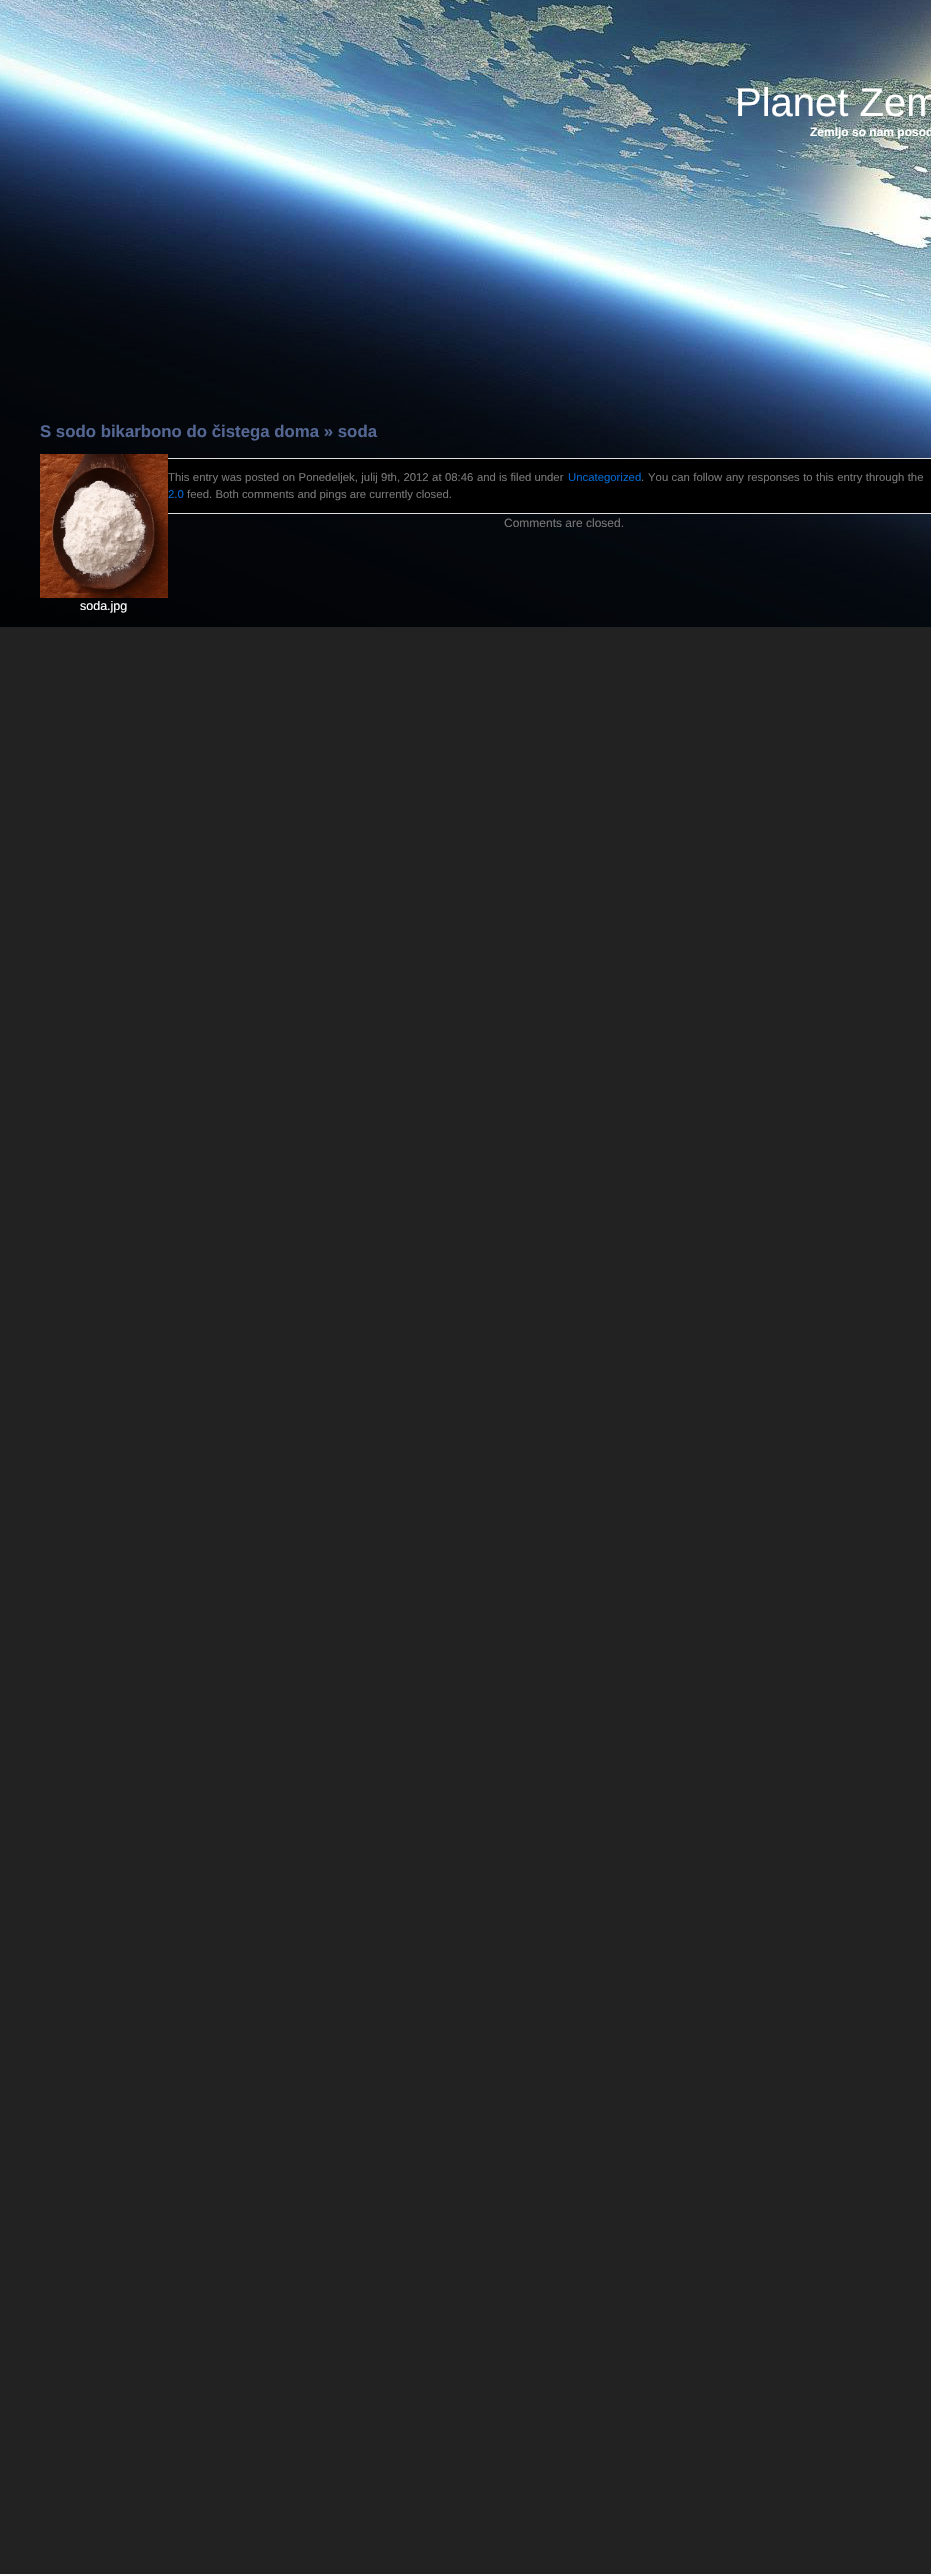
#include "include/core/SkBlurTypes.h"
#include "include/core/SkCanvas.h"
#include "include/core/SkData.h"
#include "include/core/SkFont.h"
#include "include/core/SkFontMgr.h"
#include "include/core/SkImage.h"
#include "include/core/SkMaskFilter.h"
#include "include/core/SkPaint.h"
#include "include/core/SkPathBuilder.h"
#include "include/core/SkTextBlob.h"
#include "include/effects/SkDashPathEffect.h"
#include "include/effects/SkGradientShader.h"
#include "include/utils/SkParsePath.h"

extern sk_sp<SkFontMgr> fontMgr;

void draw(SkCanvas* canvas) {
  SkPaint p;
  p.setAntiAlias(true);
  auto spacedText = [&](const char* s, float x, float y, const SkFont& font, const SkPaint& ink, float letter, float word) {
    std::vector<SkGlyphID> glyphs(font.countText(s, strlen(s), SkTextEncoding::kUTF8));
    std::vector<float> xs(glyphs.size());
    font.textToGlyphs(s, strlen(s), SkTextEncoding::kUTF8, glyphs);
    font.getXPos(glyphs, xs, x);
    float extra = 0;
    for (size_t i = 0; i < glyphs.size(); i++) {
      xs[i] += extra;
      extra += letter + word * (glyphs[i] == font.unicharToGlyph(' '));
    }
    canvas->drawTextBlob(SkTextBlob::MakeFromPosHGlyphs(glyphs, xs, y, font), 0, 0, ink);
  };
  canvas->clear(SkColorSetRGB(34, 34, 34));
  canvas->drawImageRect(SkImages::DeferredFromEncodedData(SkData::MakeFromFileName("images/1.png")), SkRect::MakeLTRB(0, 0, 931, 342), SkSamplingOptions());
  canvas->drawImageRect(SkImages::DeferredFromEncodedData(SkData::MakeFromFileName("images/2.png")), SkRect::MakeLTRB(0, 342, 931, 627), SkSamplingOptions());
  p.setColor(SK_ColorBLACK);
  canvas->drawRect(SkRect::MakeLTRB(168, 459, 931, 513), p);
  p.setColor(SkColorSetRGB(221, 221, 221));
  canvas->drawRect(SkRect::MakeLTRB(168, 458, 931, 459), p);
  canvas->drawRect(SkRect::MakeLTRB(168, 513, 931, 514), p);
  canvas->drawImageRect(SkImages::DeferredFromEncodedData(SkData::MakeFromFileName("images/3.png")), SkRect::MakeLTRB(40, 454, 168, 598), SkSamplingOptions());
  SkFont font1(fontMgr->matchFamilyStyle("Liberation Sans", SkFontStyle::Normal()), 40);
  font1.setSubpixel(true);
  p.setColor(SK_ColorWHITE);
  canvas->drawString("Planet Zem", 735, 116, font1, p);
  SkFont font2(fontMgr->matchFamilyStyle("Liberation Sans", SkFontStyle::Bold()), 12);
  font2.setSubpixel(true);
  canvas->drawString("Zemljo so nam posod", 810, 136, font2, p);
  SkFont font3(fontMgr->matchFamilyStyle("Liberation Sans", SkFontStyle::Bold()), 16.8f);
  font3.setSubpixel(true);
  p.setColor(SkColorSetRGB(84, 103, 147));
  canvas->drawString("S sodo bikarbono do čistega doma » soda", 40, 437, font3, p);
  SkFont font4(fontMgr->matchFamilyStyle("Liberation Sans", SkFontStyle::Normal()), 11.35f);
  font4.setSubpixel(true);
  p.setColor(SkColorSetRGB(119, 119, 119));
  spacedText("This entry was posted on Ponedeljek, julij 9th, 2012 at 08:46", 168, 481, font4, p, 0, 0.25f);
  canvas->drawString("and is filed under", 477, 481, font4, p);
  p.setColor(SkColorSetRGB(0, 102, 204));
  canvas->drawString("Uncategorized", 568, 481, font4, p);
  p.setColor(SkColorSetRGB(119, 119, 119));
  canvas->drawString(".", 641, 481, font4, p);
  spacedText("You can follow any responses to this entry through the", 648, 481, font4, p, 0, 0.25f);
  p.setColor(SkColorSetRGB(0, 102, 204));
  canvas->drawString("2.0", 168, 498, font4, p);
  p.setColor(SkColorSetRGB(119, 119, 119));
  canvas->drawString("feed. Both comments and pings are currently closed.", 187, 498, font4, p);
  SkFont font5(fontMgr->matchFamilyStyle("Liberation Sans", SkFontStyle::Normal()), 12.5f);
  font5.setSubpixel(true);
  p.setColor(SK_ColorWHITE);
  canvas->drawString("soda.jpg", 80, 610, font5, p);
  SkFont font6(fontMgr->matchFamilyStyle("Liberation Sans", SkFontStyle::Normal()), 12);
  font6.setSubpixel(true);
  p.setColor(SkColorSetRGB(119, 119, 119));
  canvas->drawString("Comments are closed.", 504, 527, font6, p);
}
